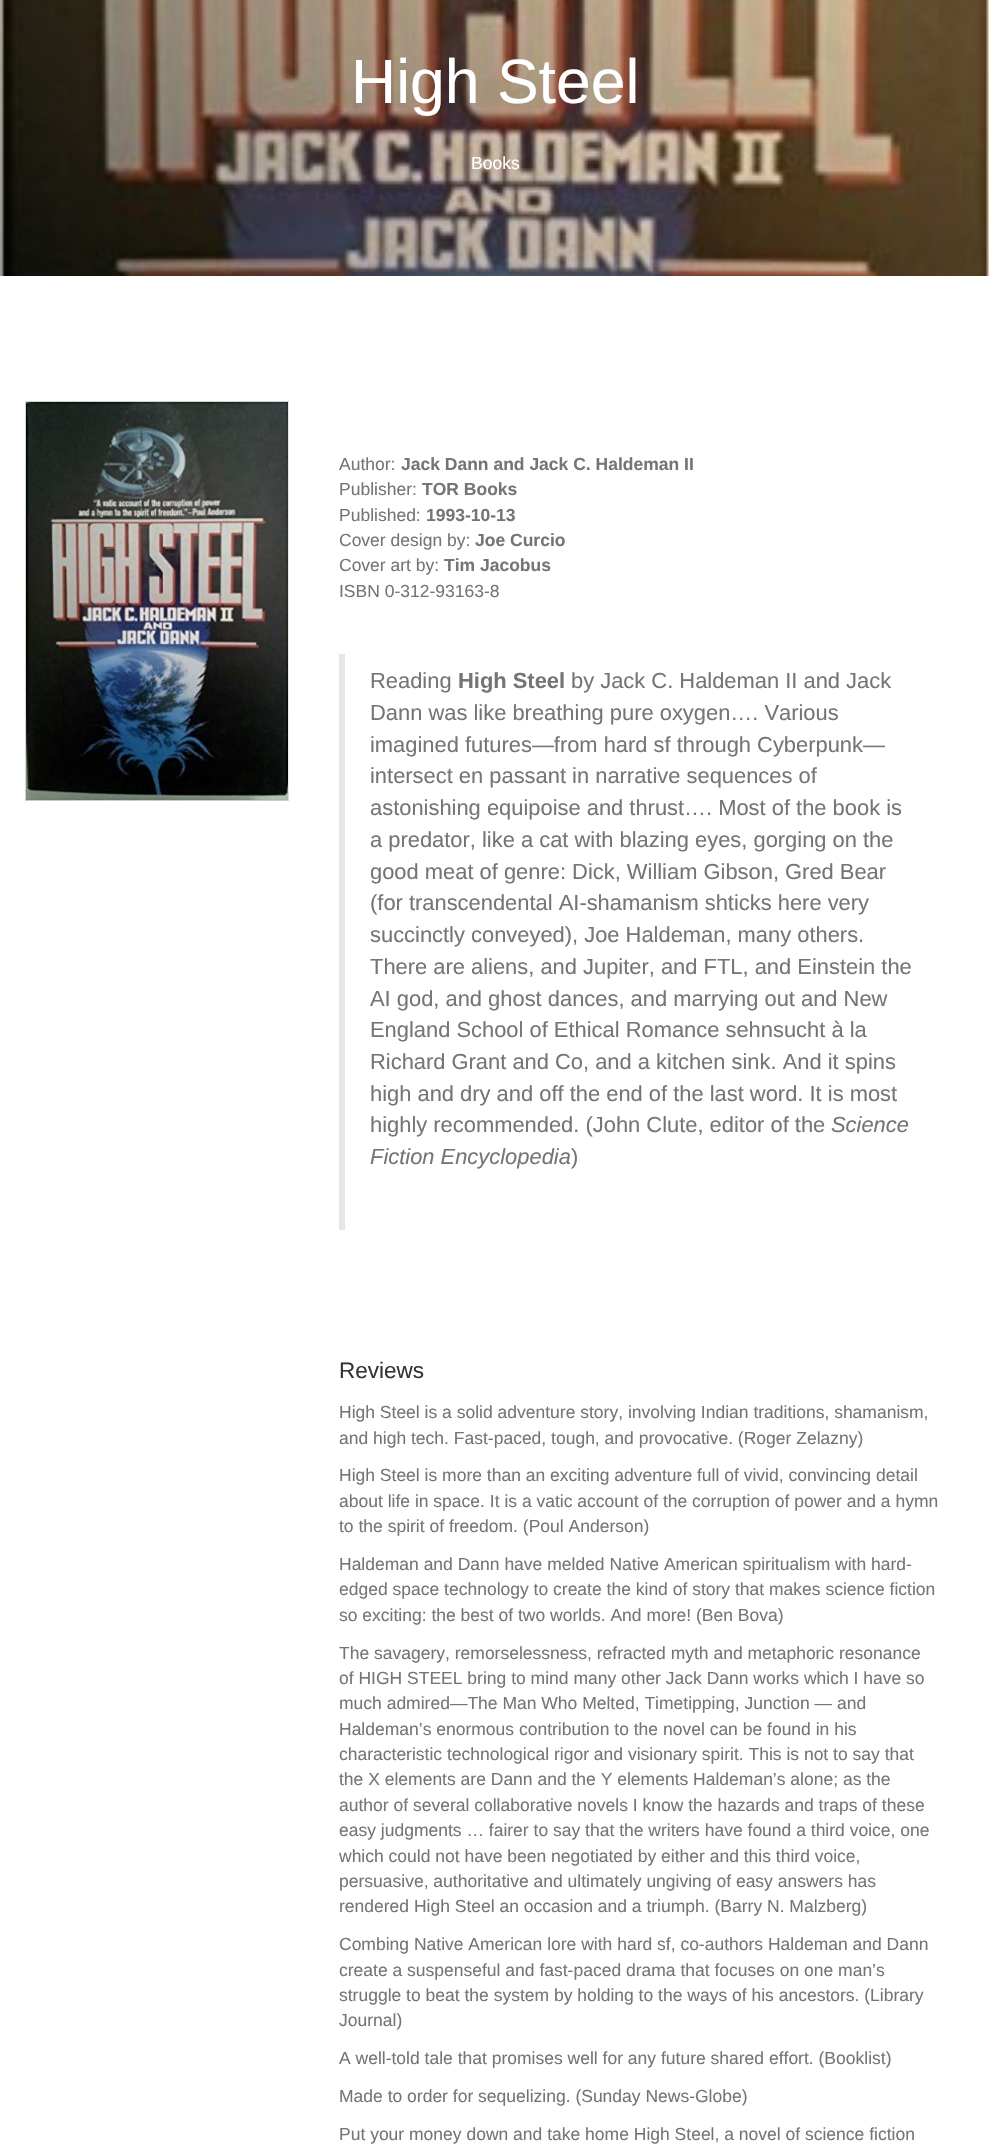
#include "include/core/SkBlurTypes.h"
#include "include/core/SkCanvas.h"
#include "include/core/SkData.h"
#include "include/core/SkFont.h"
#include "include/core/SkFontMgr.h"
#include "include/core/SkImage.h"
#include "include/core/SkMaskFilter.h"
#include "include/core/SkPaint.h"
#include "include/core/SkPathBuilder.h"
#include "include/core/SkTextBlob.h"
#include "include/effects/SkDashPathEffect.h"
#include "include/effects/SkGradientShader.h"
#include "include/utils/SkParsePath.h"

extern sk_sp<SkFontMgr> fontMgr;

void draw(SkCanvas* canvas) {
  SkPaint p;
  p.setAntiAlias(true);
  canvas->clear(SK_ColorWHITE);
  canvas->drawImageRect(SkImages::DeferredFromEncodedData(SkData::MakeFromFileName("images/1.png")), SkRect::MakeLTRB(0, 0, 989, 276), SkSamplingOptions());
  canvas->drawImageRect(SkImages::DeferredFromEncodedData(SkData::MakeFromFileName("images/2.png")), SkRect::MakeLTRB(25, 401, 289, 801), SkSamplingOptions());
  p.setColor(SkColorSetRGB(230, 230, 230));
  canvas->drawRect(SkRect::MakeLTRB(339, 654, 345, 1230), p);
  SkFont font1(fontMgr->matchFamilyStyle("Liberation Sans", SkFontStyle::Normal()), 62.5f);
  font1.setSubpixel(true);
  p.setColor(SK_ColorWHITE);
  canvas->drawString("High Steel", 351, 103, font1, p);
  SkFont font2(fontMgr->matchFamilyStyle("Liberation Sans", SkFontStyle::Normal()), 17.5f);
  font2.setSubpixel(true);
  canvas->drawString("Books", 471, 169, font2, p);
  p.setColor(SkColorSetRGB(117, 117, 117));
  canvas->drawString("Author:", 339, 470, font2, p);
  SkFont font3(fontMgr->matchFamilyStyle("Liberation Sans", SkFontStyle::Bold()), 17.5f);
  font3.setSubpixel(true);
  canvas->drawString("Jack Dann and Jack C. Haldeman II", 401, 470, font3, p);
  canvas->drawString("Publisher:", 339, 495, font2, p);
  canvas->drawString("TOR Books", 422, 495, font3, p);
  canvas->drawString("Published:", 339, 521, font2, p);
  canvas->drawString("1993-10-13", 426, 521, font3, p);
  canvas->drawString("Cover design by:", 339, 546, font2, p);
  canvas->drawString("Joe Curcio", 475, 546, font3, p);
  canvas->drawString("Cover art by:", 339, 571, font2, p);
  canvas->drawString("Tim Jacobus", 444, 571, font3, p);
  canvas->drawString("ISBN 0-312-93163-8", 339, 597, font2, p);
  SkFont font4(fontMgr->matchFamilyStyle("Liberation Sans", SkFontStyle::Normal()), 21.9f);
  font4.setSubpixel(true);
  canvas->drawString("Reading", 370, 688, font4, p);
  SkFont font5(fontMgr->matchFamilyStyle("Liberation Sans", SkFontStyle::Bold()), 21.9f);
  font5.setSubpixel(true);
  canvas->drawString("High Steel", 458, 688, font5, p);
  canvas->drawString("by Jack C. Haldeman II and Jack", 571, 688, font4, p);
  canvas->drawString("Dann was like breathing pure oxygen…. Various", 370, 720, font4, p);
  canvas->drawString("imagined futures—from hard sf through Cyberpunk—", 370, 752, font4, p);
  canvas->drawString("intersect en passant in narrative sequences of", 370, 783, font4, p);
  canvas->drawString("astonishing equipoise and thrust…. Most of the book is", 370, 815, font4, p);
  canvas->drawString("a predator, like a cat with blazing eyes, gorging on the", 370, 847, font4, p);
  canvas->drawString("good meat of genre: Dick, William Gibson, Gred Bear", 370, 879, font4, p);
  canvas->drawString("(for transcendental AI-shamanism shticks here very", 370, 910, font4, p);
  canvas->drawString("succinctly conveyed), Joe Haldeman, many others.", 370, 942, font4, p);
  canvas->drawString("There are aliens, and Jupiter, and FTL, and Einstein the", 370, 974, font4, p);
  canvas->drawString("AI god, and ghost dances, and marrying out and New", 370, 1006, font4, p);
  canvas->drawString("England School of Ethical Romance sehnsucht à la", 370, 1037, font4, p);
  canvas->drawString("Richard Grant and Co, and a kitchen sink. And it spins", 370, 1069, font4, p);
  canvas->drawString("high and dry and off the end of the last word. It is most", 370, 1101, font4, p);
  canvas->drawString("highly recommended. (John Clute, editor of the", 370, 1132, font4, p);
  SkFont font6(fontMgr->matchFamilyStyle("Liberation Sans", SkFontStyle::Italic()), 21.9f);
  font6.setSubpixel(true);
  canvas->drawString("Science", 831, 1132, font6, p);
  canvas->drawString("Fiction Encyclopedia", 370, 1164, font6, p);
  canvas->drawString(")", 571, 1164, font4, p);
  SkFont font7(fontMgr->matchFamilyStyle("Liberation Sans", SkFontStyle::Normal()), 22.5f);
  font7.setSubpixel(true);
  p.setColor(SkColorSetRGB(51, 51, 51));
  canvas->drawString("Reviews", 339, 1378, font7, p);
  p.setColor(SkColorSetRGB(117, 117, 117));
  canvas->drawString("High Steel is a solid adventure story, involving Indian traditions, shamanism,", 339, 1418, font2, p);
  canvas->drawString("and high tech. Fast-paced, tough, and provocative. (Roger Zelazny)", 339, 1444, font2, p);
  canvas->drawString("High Steel is more than an exciting adventure full of vivid, convincing detail", 339, 1481, font2, p);
  canvas->drawString("about life in space. It is a vatic account of the corruption of power and a hymn", 339, 1507, font2, p);
  canvas->drawString("to the spirit of freedom. (Poul Anderson)", 339, 1532, font2, p);
  canvas->drawString("Haldeman and Dann have melded Native American spiritualism with hard-", 339, 1570, font2, p);
  canvas->drawString("edged space technology to create the kind of story that makes science fiction", 339, 1595, font2, p);
  canvas->drawString("so exciting: the best of two worlds. And more! (Ben Bova)", 339, 1621, font2, p);
  canvas->drawString("The savagery, remorselessness, refracted myth and metaphoric resonance", 339, 1659, font2, p);
  canvas->drawString("of HIGH STEEL bring to mind many other Jack Dann works which I have so", 339, 1684, font2, p);
  canvas->drawString("much admired—The Man Who Melted, Timetipping, Junction — and", 339, 1709, font2, p);
  canvas->drawString("Haldeman’s enormous contribution to the novel can be found in his", 339, 1735, font2, p);
  canvas->drawString("characteristic technological rigor and visionary spirit. This is not to say that", 339, 1760, font2, p);
  canvas->drawString("the X elements are Dann and the Y elements Haldeman’s alone; as the", 339, 1785, font2, p);
  canvas->drawString("author of several collaborative novels I know the hazards and traps of these", 339, 1811, font2, p);
  canvas->drawString("easy judgments … fairer to say that the writers have found a third voice, one", 339, 1836, font2, p);
  canvas->drawString("which could not have been negotiated by either and this third voice,", 339, 1862, font2, p);
  canvas->drawString("persuasive, authoritative and ultimately ungiving of easy answers has", 339, 1887, font2, p);
  canvas->drawString("rendered High Steel an occasion and a triumph. (Barry N. Malzberg)", 339, 1912, font2, p);
  canvas->drawString("Combing Native American lore with hard sf, co-authors Haldeman and Dann", 339, 1950, font2, p);
  canvas->drawString("create a suspenseful and fast-paced drama that focuses on one man’s", 339, 1976, font2, p);
  canvas->drawString("struggle to beat the system by holding to the ways of his ancestors. (Library", 339, 2001, font2, p);
  canvas->drawString("Journal)", 339, 2026, font2, p);
  canvas->drawString("A well-told tale that promises well for any future shared effort. (Booklist)", 339, 2064, font2, p);
  canvas->drawString("Made to order for sequelizing. (Sunday News-Globe)", 339, 2102, font2, p);
  canvas->drawString("Put your money down and take home High Steel, a novel of science fiction", 339, 2140, font2, p);
}
